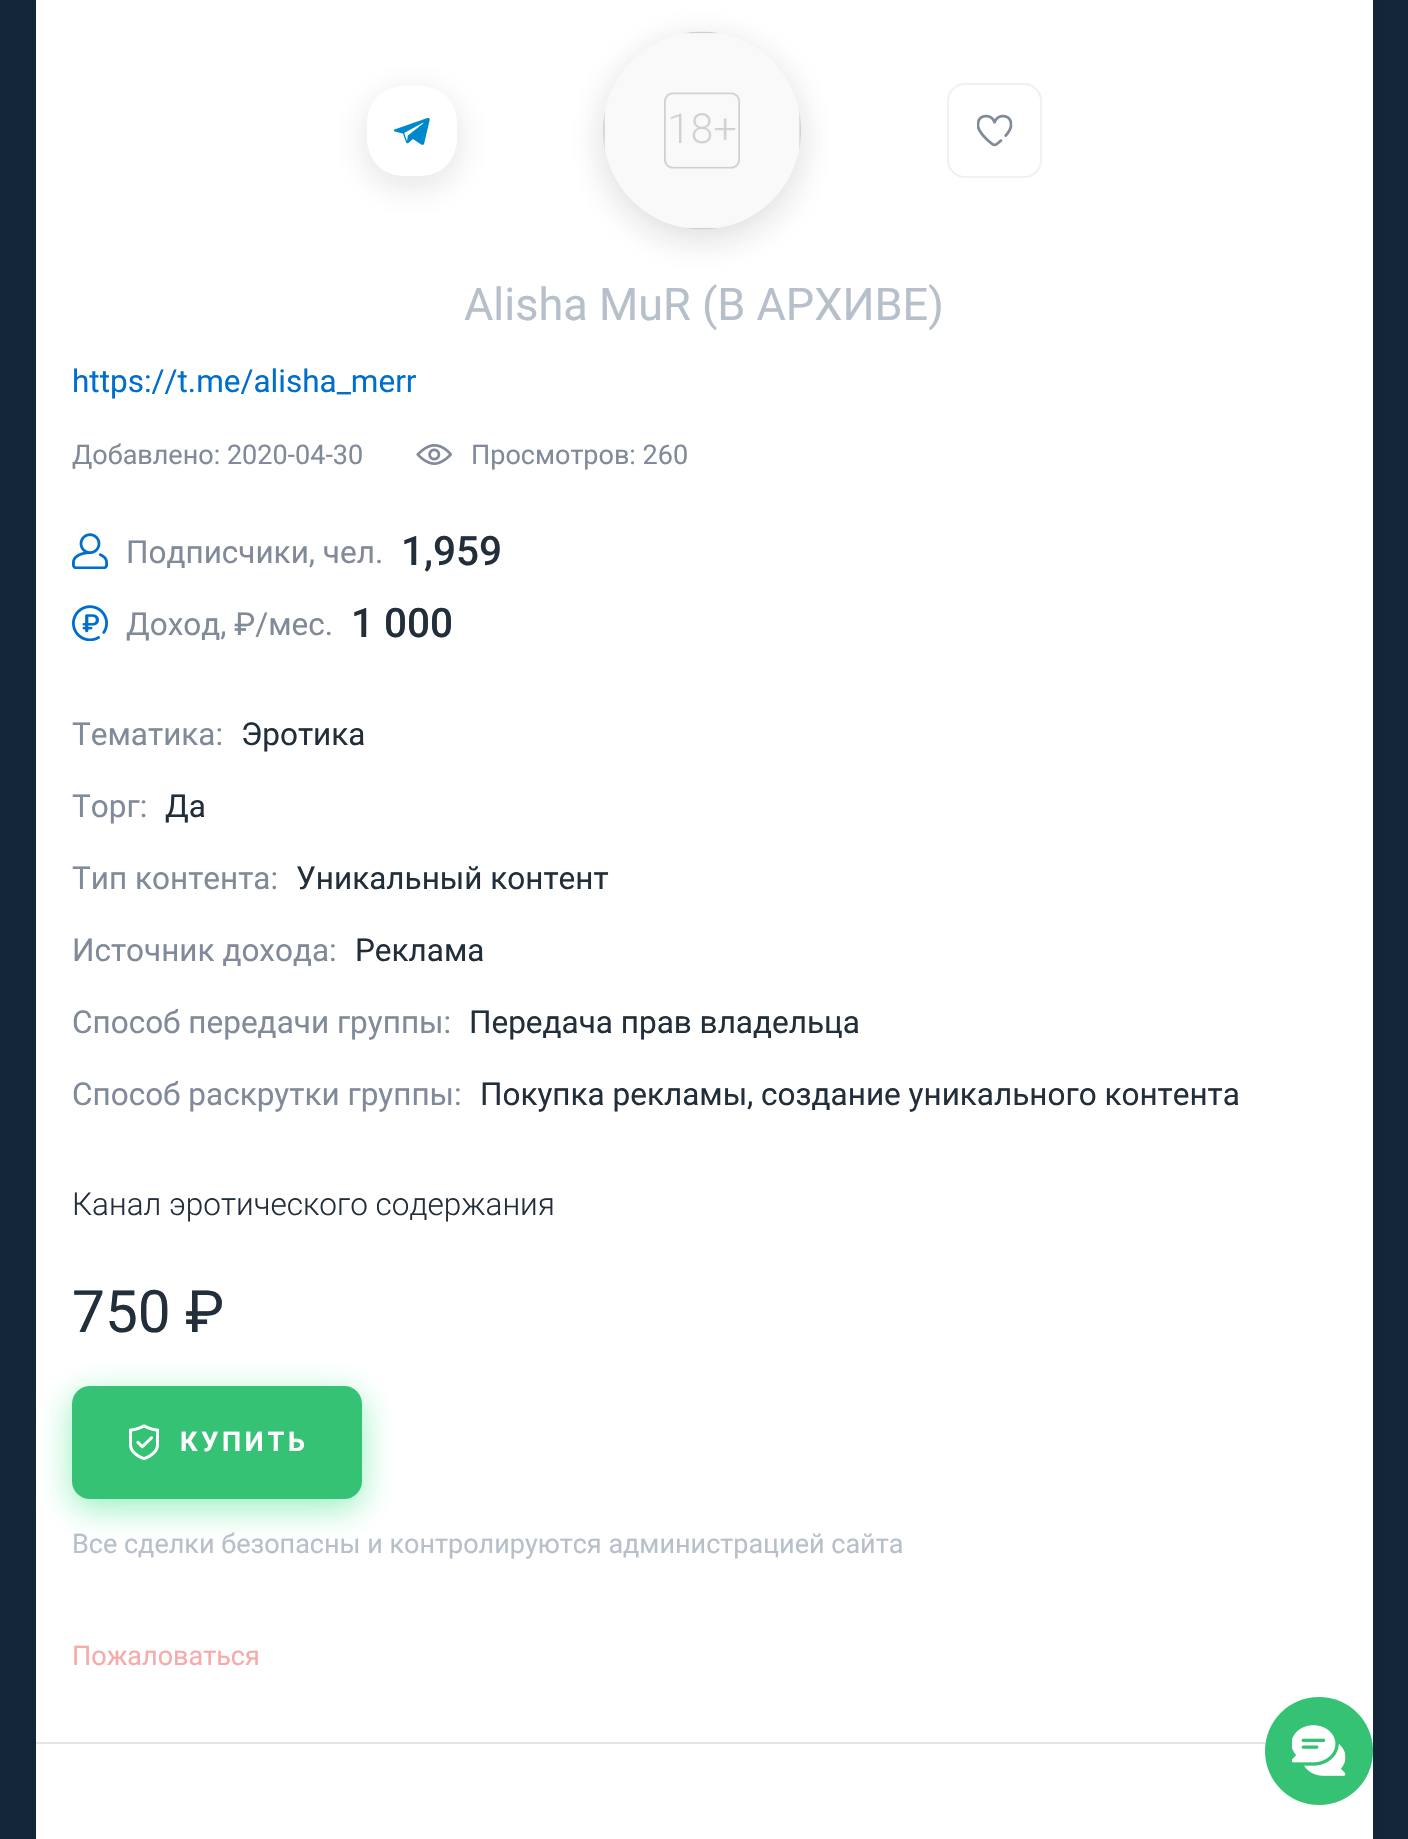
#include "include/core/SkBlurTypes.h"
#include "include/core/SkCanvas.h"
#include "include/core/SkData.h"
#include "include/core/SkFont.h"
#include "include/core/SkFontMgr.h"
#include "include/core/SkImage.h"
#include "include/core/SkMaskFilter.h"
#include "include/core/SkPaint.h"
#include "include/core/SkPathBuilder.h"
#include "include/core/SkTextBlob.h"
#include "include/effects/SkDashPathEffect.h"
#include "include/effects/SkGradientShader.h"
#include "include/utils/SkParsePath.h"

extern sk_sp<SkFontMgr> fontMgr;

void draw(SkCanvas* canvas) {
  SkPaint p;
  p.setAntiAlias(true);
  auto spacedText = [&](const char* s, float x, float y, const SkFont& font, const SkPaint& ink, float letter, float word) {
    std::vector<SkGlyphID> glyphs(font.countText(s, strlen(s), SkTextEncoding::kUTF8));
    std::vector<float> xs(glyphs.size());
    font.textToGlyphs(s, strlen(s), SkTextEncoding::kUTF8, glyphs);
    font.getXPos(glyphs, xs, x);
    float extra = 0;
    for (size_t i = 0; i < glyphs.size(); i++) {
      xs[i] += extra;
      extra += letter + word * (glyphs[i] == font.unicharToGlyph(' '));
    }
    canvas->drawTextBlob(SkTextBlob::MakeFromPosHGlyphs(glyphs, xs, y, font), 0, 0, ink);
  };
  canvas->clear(SK_ColorWHITE);
  {
    const SkColor colors[] = {SkColorSetRGB(19, 39, 57), SkColorSetRGB(12, 25, 36), SkColorSetRGB(19, 39, 57)};
    const float stops[] = {0, 0.5f, 1};
    const SkPoint ends[] = {{0, 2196}, {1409, 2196}};
    p.setShader(SkGradientShader::MakeLinear(ends, colors, stops, 3, SkTileMode::kClamp));
    p.setAlpha(255);
  }
  canvas->drawRect(SkRect::MakeLTRB(0, 0, 1408, 1839), p);
  p.setShader(nullptr);
  p.setColor(SK_ColorWHITE);
  canvas->drawRect(SkRect::MakeLTRB(36, 0, 1373, 1839), p);
  p.setColor(SkColorSetRGB(225, 230, 235));
  canvas->drawRect(SkRect::MakeLTRB(36, 1742, 1373, 1744), p);
  p.setColor(SkColorSetARGB(31, 17, 18, 37));
  p.setMaskFilter(SkMaskFilter::MakeBlur(kNormal_SkBlurStyle, 18));
  canvas->drawRoundRect(SkRect::MakeLTRB(367, 95, 457, 185), 36, 36, p);
  p.setMaskFilter(nullptr);
  p.setColor(SK_ColorWHITE);
  canvas->drawRoundRect(SkRect::MakeLTRB(367, 86, 457, 176), 36, 36, p);
  canvas->drawImageRect(SkImages::DeferredFromEncodedData(SkData::MakeFromFileName("images/1.png")), SkRect::MakeLTRB(394, 117, 430, 145), SkSamplingOptions());
  p.setColor(SkColorSetARGB(38, 17, 18, 37));
  p.setMaskFilter(SkMaskFilter::MakeBlur(kNormal_SkBlurStyle, 18));
  canvas->drawRoundRect(SkRect::MakeLTRB(603, 41, 801, 239), 99, 99, p);
  p.setMaskFilter(nullptr);
  canvas->drawImageRect(SkImages::DeferredFromEncodedData(SkData::MakeFromFileName("images/2.png")), SkRect::MakeLTRB(603, 31, 801, 230), SkSamplingOptions());
  p.setStyle(SkPaint::kStroke_Style);
  p.setStrokeWidth(2);
  p.setColor(SkColorSetRGB(238, 242, 243));
  canvas->drawRoundRect(SkRect::MakeLTRB(948, 84, 1041, 177), 17, 17, p);
  canvas->drawImageRect(SkImages::DeferredFromEncodedData(SkData::MakeFromFileName("images/3.png")), SkRect::MakeLTRB(977, 114, 1013, 147), SkSamplingOptions());
  canvas->drawImageRect(SkImages::DeferredFromEncodedData(SkData::MakeFromFileName("images/4.png")), SkRect::MakeLTRB(416, 444, 452, 465), SkSamplingOptions());
  canvas->drawImageRect(SkImages::DeferredFromEncodedData(SkData::MakeFromFileName("images/5.png")), SkRect::MakeLTRB(72, 533, 108, 569), SkSamplingOptions());
  canvas->drawImageRect(SkImages::DeferredFromEncodedData(SkData::MakeFromFileName("images/6.png")), SkRect::MakeLTRB(72, 605, 108, 641), SkSamplingOptions());
  p.setStyle(SkPaint::kFill_Style);
  p.setColor(SkColorSetARGB(128, 39, 226, 123));
  p.setMaskFilter(SkMaskFilter::MakeBlur(kNormal_SkBlurStyle, 17));
  canvas->drawRoundRect(SkRect::MakeLTRB(72, 1395, 362, 1508), 18, 18, p);
  p.setMaskFilter(nullptr);
  p.setColor(SkColorSetRGB(53, 194, 116));
  canvas->drawRoundRect(SkRect::MakeLTRB(72, 1386, 362, 1499), 18, 18, p);
  canvas->drawImageRect(SkImages::DeferredFromEncodedData(SkData::MakeFromFileName("images/7.png")), SkRect::MakeLTRB(129, 1424, 159, 1460), SkSamplingOptions());
  canvas->drawCircle(1319, 1751, 54, p);
  canvas->drawImageRect(SkImages::DeferredFromEncodedData(SkData::MakeFromFileName("images/8.png")), SkRect::MakeLTRB(1292, 1725, 1346, 1776), SkSamplingOptions());
  SkFont font1(fontMgr->matchFamilyStyle("Roboto", SkFontStyle::Normal()), 45);
  font1.setSubpixel(true);
  p.setColor(SkColorSetRGB(183, 192, 202));
  canvas->drawString("Alisha MuR (В АРХИВЕ)", 464, 320, font1, p);
  SkFont font2(fontMgr->matchFamilyStyle("Roboto", SkFontStyle::Normal()), 31.5f);
  font2.setSubpixel(true);
  p.setColor(SkColorSetRGB(0, 110, 204));
  canvas->drawString("https://t.me/alisha_merr", 72, 392, font2, p);
  SkFont font3(fontMgr->matchFamilyStyle("Roboto", SkFontStyle::Normal()), 27);
  font3.setSubpixel(true);
  p.setColor(SkColorSetRGB(128, 138, 152));
  canvas->drawString("Добавлено: 2020-04-30", 72, 464, font3, p);
  canvas->drawString("Просмотров: 260", 471, 464, font3, p);
  canvas->drawString("Подписчики, чел.", 126, 563, font2, p);
  SkFont font4(fontMgr->matchFamilyStyle("Roboto", SkFontStyle(500, SkFontStyle::kNormal_Width, SkFontStyle::kUpright_Slant)), 40.5f);
  font4.setSubpixel(true);
  p.setColor(SkColorSetRGB(34, 46, 58));
  canvas->drawString("1,959", 401, 565, font4, p);
  p.setColor(SkColorSetRGB(128, 138, 152));
  canvas->drawString("Доход, ₽/мес.", 126, 635, font2, p);
  p.setColor(SkColorSetRGB(34, 46, 58));
  canvas->drawString("1 000", 351, 637, font4, p);
  p.setColor(SkColorSetRGB(128, 138, 152));
  canvas->drawString("Тематика:", 72, 745, font2, p);
  p.setColor(SkColorSetRGB(34, 46, 58));
  canvas->drawString("Эротика", 241, 745, font2, p);
  p.setColor(SkColorSetRGB(128, 138, 152));
  canvas->drawString("Торг:", 72, 817, font2, p);
  p.setColor(SkColorSetRGB(34, 46, 58));
  canvas->drawString("Да", 165, 817, font2, p);
  p.setColor(SkColorSetRGB(128, 138, 152));
  canvas->drawString("Тип контента:", 72, 889, font2, p);
  p.setColor(SkColorSetRGB(34, 46, 58));
  canvas->drawString("Уникальный контент", 296, 889, font2, p);
  p.setColor(SkColorSetRGB(128, 138, 152));
  canvas->drawString("Источник дохода:", 72, 961, font2, p);
  p.setColor(SkColorSetRGB(34, 46, 58));
  canvas->drawString("Реклама", 355, 961, font2, p);
  p.setColor(SkColorSetRGB(128, 138, 152));
  canvas->drawString("Способ передачи группы:", 72, 1033, font2, p);
  p.setColor(SkColorSetRGB(34, 46, 58));
  canvas->drawString("Передача прав владельца", 469, 1033, font2, p);
  p.setColor(SkColorSetRGB(128, 138, 152));
  canvas->drawString("Способ раскрутки группы:", 72, 1105, font2, p);
  p.setColor(SkColorSetRGB(34, 46, 58));
  canvas->drawString("Покупка рекламы, создание уникального контента", 480, 1105, font2, p);
  SkFont font5(fontMgr->matchFamilyStyle("Roboto", SkFontStyle(300, SkFontStyle::kNormal_Width, SkFontStyle::kUpright_Slant)), 31.5f);
  font5.setSubpixel(true);
  canvas->drawString("Канал эротического содержания", 72, 1215, font5, p);
  SkFont font6(fontMgr->matchFamilyStyle("Roboto", SkFontStyle::Normal()), 58.5f);
  font6.setSubpixel(true);
  canvas->drawString("750 ₽", 72, 1332, font6, p);
  SkFont font7(fontMgr->matchFamilyStyle("Roboto", SkFontStyle::Bold()), 27);
  font7.setSubpixel(true);
  p.setColor(SK_ColorWHITE);
  spacedText("КУПИТЬ", 180, 1451, font7, p, 3.75f, 0);
  p.setColor(SkColorSetRGB(183, 192, 202));
  canvas->drawString("Все сделки безопасны и контролируются администрацией сайта", 72, 1553, font3, p);
  p.setColor(SkColorSetRGB(246, 170, 170));
  canvas->drawString("Пожаловаться", 72, 1665, font3, p);
}
